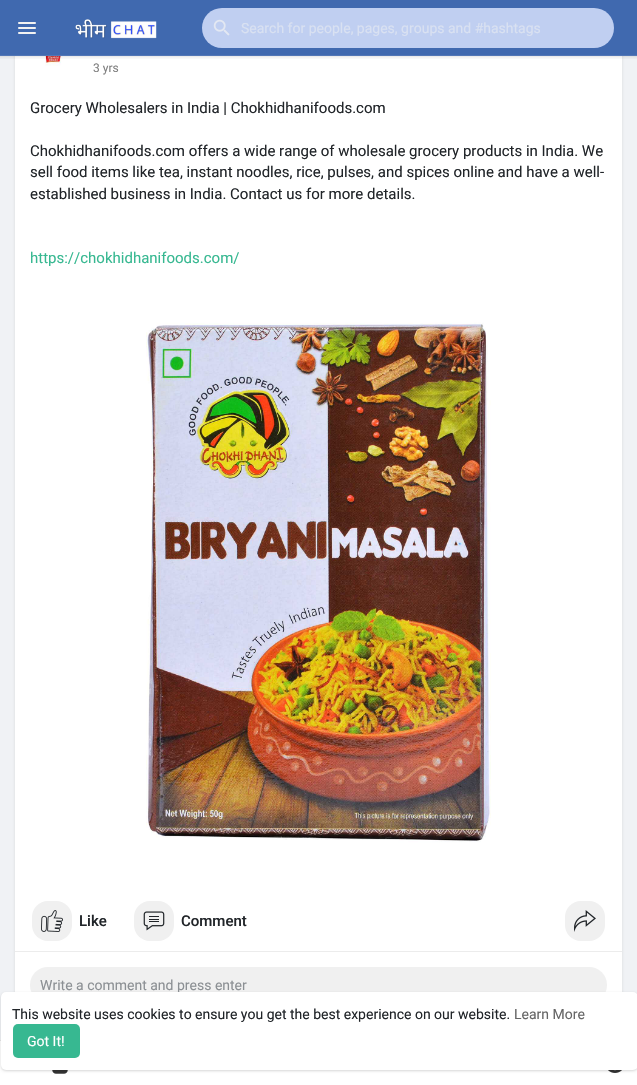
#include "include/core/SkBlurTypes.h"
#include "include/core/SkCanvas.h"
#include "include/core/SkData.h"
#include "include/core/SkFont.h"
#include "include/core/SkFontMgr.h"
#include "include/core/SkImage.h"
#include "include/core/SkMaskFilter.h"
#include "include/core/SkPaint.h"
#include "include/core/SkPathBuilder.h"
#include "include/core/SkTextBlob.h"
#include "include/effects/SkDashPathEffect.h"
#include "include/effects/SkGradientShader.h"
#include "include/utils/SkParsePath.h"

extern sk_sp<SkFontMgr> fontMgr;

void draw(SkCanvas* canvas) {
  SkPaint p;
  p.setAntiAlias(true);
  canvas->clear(SkColorSetRGB(240, 242, 245));
  p.setColor(SkColorSetARGB(26, 0, 0, 0));
  p.setMaskFilter(SkMaskFilter::MakeBlur(kNormal_SkBlurStyle, 1.5f));
  canvas->drawRoundRect(SkRect::MakeLTRB(15, 21, 622, 1019), 10, 10, p);
  p.setMaskFilter(nullptr);
  p.setColor(SkColorSetRGB(64, 105, 175));
  canvas->drawRect(SkRect::MakeLTRB(0, 0, 637, 56), p);
  canvas->drawImageRect(SkImages::DeferredFromEncodedData(SkData::MakeFromFileName("images/1.png")), SkRect::MakeLTRB(18, 22, 36, 34), SkSamplingOptions());
  canvas->drawImageRect(SkImages::DeferredFromEncodedData(SkData::MakeFromFileName("images/2.png")), SkRect::MakeLTRB(75, 19, 157, 39), SkSamplingOptions());
  p.setColor(SkColorSetRGB(192, 207, 241));
  canvas->drawRoundRect(SkRect::MakeLTRB(202, 8, 614, 48), 20, 20, p);
  canvas->drawImageRect(SkImages::DeferredFromEncodedData(SkData::MakeFromFileName("images/3.png")), SkRect::MakeLTRB(213, 19, 230, 36), SkSamplingOptions());
  p.setColor(SK_ColorWHITE);
  canvas->drawRect(SkRect::MakeLTRB(15, 56, 622, 962), p);
  canvas->drawImageRect(SkImages::DeferredFromEncodedData(SkData::MakeFromFileName("images/6.png")), SkRect::MakeLTRB(45, 56, 62, 66), SkSamplingOptions());
  canvas->drawImageRect(SkImages::DeferredFromEncodedData(SkData::MakeFromFileName("images/4.png")), SkRect::MakeLTRB(0, 55, 637, 59), SkSamplingOptions());
  canvas->drawRect(SkRect::MakeLTRB(0, 1041, 637, 1085), p);
  canvas->drawImageRect(SkImages::DeferredFromEncodedData(SkData::MakeFromFileName("images/5.png")), SkRect::MakeLTRB(608, 1070, 622, 1073), SkSamplingOptions());
  canvas->drawImageRect(SkImages::DeferredFromEncodedData(SkData::MakeFromFileName("images/7.png")), SkRect::MakeLTRB(15, 279, 622, 886), SkSamplingOptions());
  p.setColor(SkColorSetRGB(240, 240, 240));
  canvas->drawRoundRect(SkRect::MakeLTRB(32, 901, 72, 941), 16, 16, p);
  canvas->drawImageRect(SkImages::DeferredFromEncodedData(SkData::MakeFromFileName("images/8.png")), SkRect::MakeLTRB(41, 910, 63, 932), SkSamplingOptions());
  canvas->drawRoundRect(SkRect::MakeLTRB(134, 901, 174, 941), 16, 16, p);
  canvas->drawImageRect(SkImages::DeferredFromEncodedData(SkData::MakeFromFileName("images/9.png")), SkRect::MakeLTRB(143, 911, 165, 931), SkSamplingOptions());
  canvas->drawRoundRect(SkRect::MakeLTRB(565, 901, 605, 941), 16, 16, p);
  canvas->drawImageRect(SkImages::DeferredFromEncodedData(SkData::MakeFromFileName("images/10.png")), SkRect::MakeLTRB(574, 910, 596, 932), SkSamplingOptions());
  p.setColor(SkColorSetRGB(236, 236, 236));
  canvas->drawRect(SkRect::MakeLTRB(15, 951, 622, 952), p);
  p.setColor(SK_ColorWHITE);
  canvas->drawRoundRect(SkRect::MakeLTRB(15, 952, 622, 1018), 10, 10, p);
  p.setColor(SkColorSetRGB(240, 240, 240));
  canvas->drawRoundRect(SkRect::MakeLTRB(30, 967, 607, 1003), 18, 18, p);
  p.setColor(SkColorSetRGB(230, 230, 230));
  canvas->drawRect(SkRect::MakeLTRB(0, 1040, 1, 1041), p);
  canvas->drawImageRect(SkImages::DeferredFromEncodedData(SkData::MakeFromFileName("images/11.png")), SkRect::MakeLTRB(52, 1070, 68, 1074), SkSamplingOptions());
  p.setColor(SkColorSetARGB(15, 0, 0, 0));
  p.setMaskFilter(SkMaskFilter::MakeBlur(kNormal_SkBlurStyle, 1));
  canvas->drawRoundRect(SkRect::MakeLTRB(1, 993, 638, 1071), 5, 5, p);
  p.setMaskFilter(nullptr);
  p.setColor(SkColorSetARGB(26, 0, 0, 0));
  p.setMaskFilter(SkMaskFilter::MakeBlur(kNormal_SkBlurStyle, 1.5f));
  canvas->drawRoundRect(SkRect::MakeLTRB(1, 993, 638, 1071), 5, 5, p);
  p.setMaskFilter(nullptr);
  SkFont font1(fontMgr->matchFamilyStyle("Roboto", SkFontStyle::Normal()), 14);
  font1.setSubpixel(true);
  p.setColor(SkColorSetRGB(217, 225, 242));
  canvas->drawString("Search for people, pages, groups and #hashtags", 241, 33, font1, p);
  SkFont font2(fontMgr->matchFamilyStyle("Roboto", SkFontStyle::Normal()), 12);
  font2.setSubpixel(true);
  p.setColor(SkColorSetRGB(127, 127, 127));
  canvas->drawString("3 yrs", 93, 72, font2, p);
  SkFont font3(fontMgr->matchFamilyStyle("Roboto", SkFontStyle::Normal()), 15);
  font3.setSubpixel(true);
  p.setColor(SkColorSetRGB(33, 37, 41));
  canvas->drawString("Grocery Wholesalers in India | Chokhidhanifoods.com", 30, 113, font3, p);
  canvas->drawString("Chokhidhanifoods.com offers a wide range of wholesale grocery products in India. We", 30, 156, font3, p);
  canvas->drawString("sell food items like tea, instant noodles, rice, pulses, and spices online and have a well-", 30, 177, font3, p);
  canvas->drawString("established business in India. Contact us for more details.", 30, 199, font3, p);
  p.setColor(SkColorSetRGB(55, 184, 145));
  canvas->drawString("https://chokhidhanifoods.com/", 30, 263, font3, p);
  SkFont font4(fontMgr->matchFamilyStyle("Roboto", SkFontStyle(500, SkFontStyle::kNormal_Width, SkFontStyle::kUpright_Slant)), 15);
  font4.setSubpixel(true);
  p.setColor(SkColorSetRGB(33, 37, 41));
  canvas->drawString("Like", 79, 926, font4, p);
  canvas->drawString("Comment", 181, 926, font4, p);
  p.setColor(SkColorSetRGB(140, 144, 148));
  canvas->drawString("Write a comment and press enter", 40, 990, font1, p);
  p.setColor(SK_ColorWHITE);
  canvas->drawRoundRect(SkRect::MakeLTRB(1, 992, 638, 1070), 5, 5, p);
  p.setColor(SkColorSetRGB(33, 37, 41));
  canvas->drawString("This website uses cookies to ensure you get the best experience on our website.", 12, 1019, font1, p);
  p.setColor(SkColorSetRGB(102, 102, 102));
  canvas->drawString("Learn More", 514, 1019, font1, p);
  p.setColor(SkColorSetRGB(55, 184, 145));
  canvas->drawRoundRect(SkRect::MakeLTRB(13, 1024, 80, 1058), 5, 5, p);
  p.setColor(SK_ColorWHITE);
  canvas->drawString("Got It!", 27, 1046, font1, p);
}
